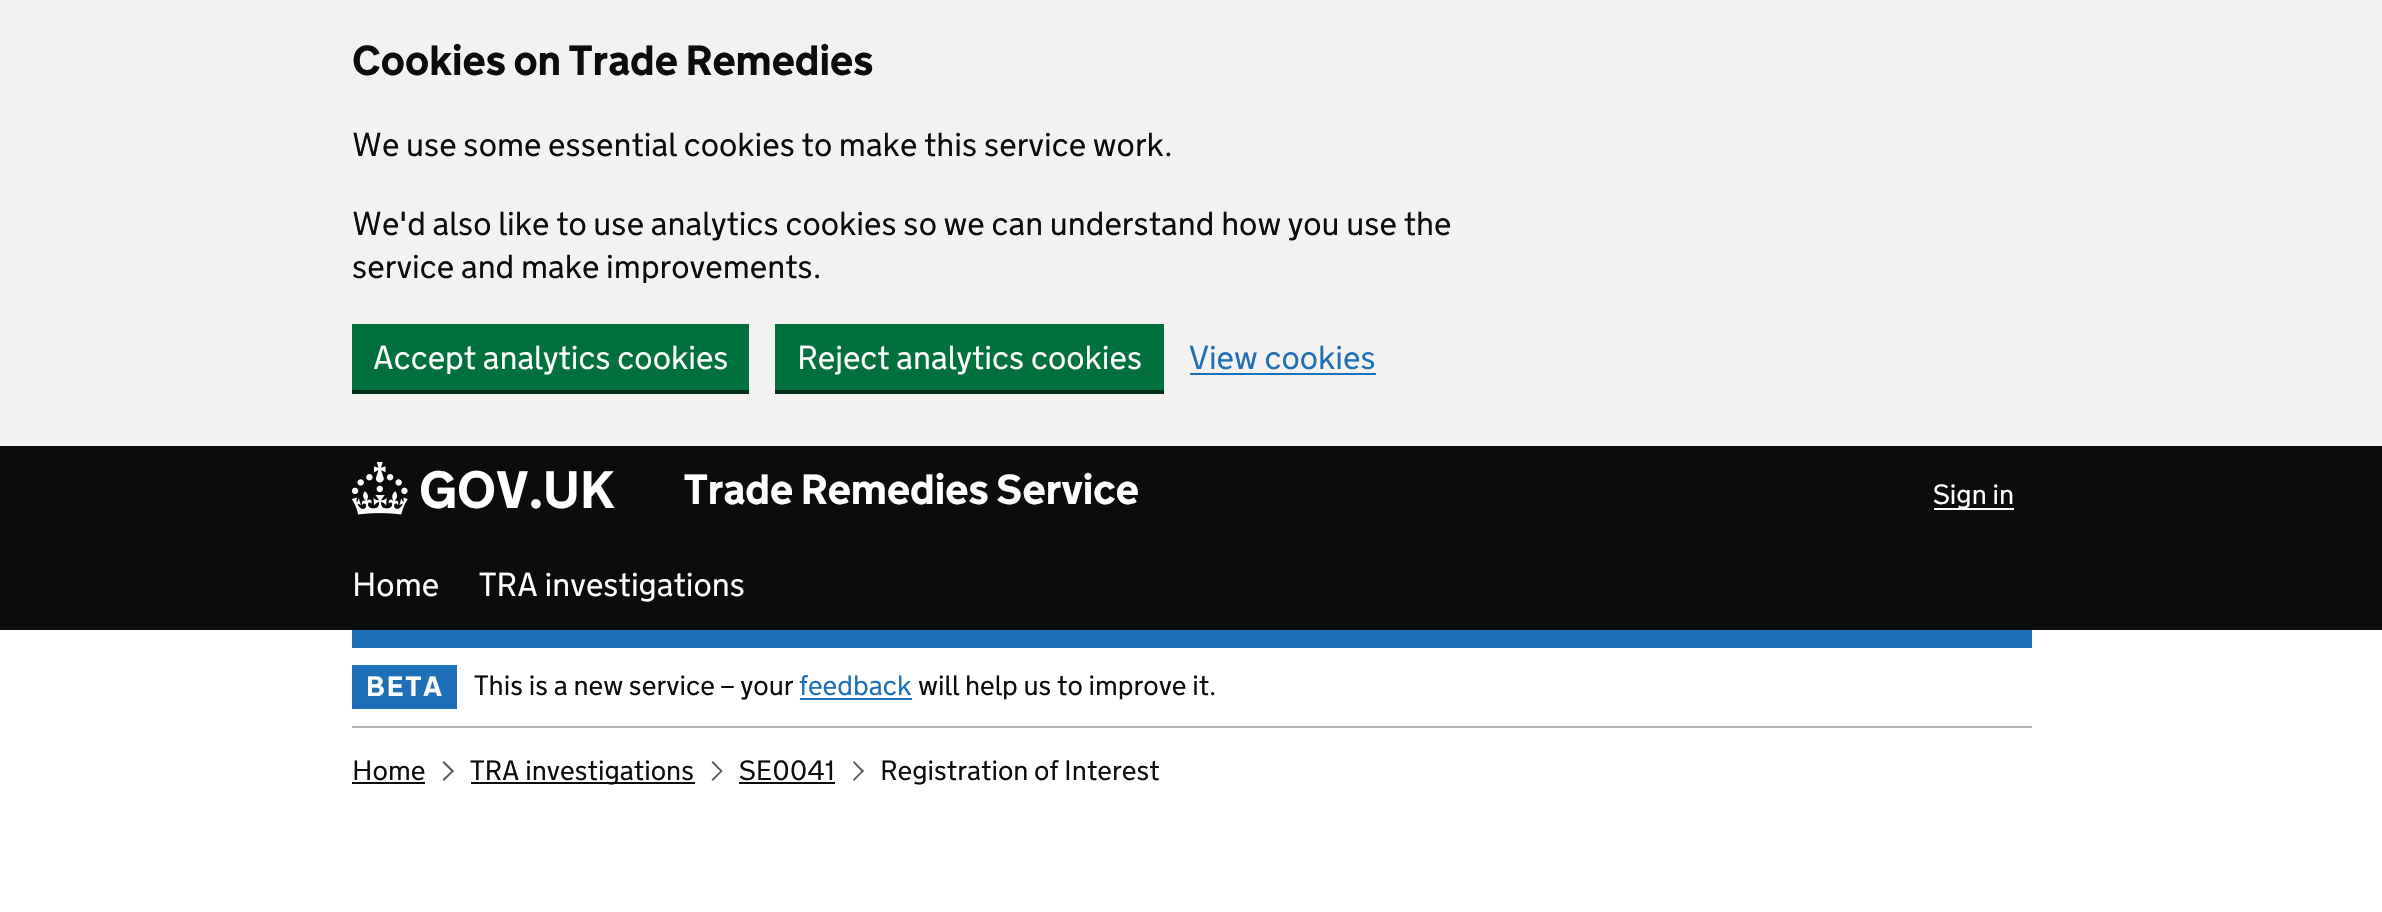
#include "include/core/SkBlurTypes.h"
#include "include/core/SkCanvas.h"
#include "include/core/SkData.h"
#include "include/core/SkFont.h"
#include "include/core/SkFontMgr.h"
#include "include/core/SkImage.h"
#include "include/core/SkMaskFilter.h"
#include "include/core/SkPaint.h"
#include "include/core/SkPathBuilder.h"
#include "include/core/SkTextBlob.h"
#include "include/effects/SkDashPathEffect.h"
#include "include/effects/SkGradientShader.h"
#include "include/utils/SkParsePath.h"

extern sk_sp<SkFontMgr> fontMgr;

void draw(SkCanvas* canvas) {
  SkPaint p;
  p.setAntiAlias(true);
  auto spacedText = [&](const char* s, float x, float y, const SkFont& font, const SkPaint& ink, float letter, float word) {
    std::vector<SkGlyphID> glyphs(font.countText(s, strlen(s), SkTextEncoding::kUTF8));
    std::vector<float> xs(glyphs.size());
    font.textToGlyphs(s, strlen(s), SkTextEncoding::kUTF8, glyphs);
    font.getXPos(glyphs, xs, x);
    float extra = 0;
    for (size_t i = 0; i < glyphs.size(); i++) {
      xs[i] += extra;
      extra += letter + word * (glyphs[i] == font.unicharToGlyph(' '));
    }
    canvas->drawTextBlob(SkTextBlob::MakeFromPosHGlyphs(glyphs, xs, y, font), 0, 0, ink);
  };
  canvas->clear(SK_ColorWHITE);
  p.setColor(SkColorSetRGB(243, 242, 241));
  canvas->drawRect(SkRect::MakeLTRB(0, 0, 2382, 446), p);
  p.setColor(SkColorSetRGB(0, 45, 24));
  canvas->drawRect(SkRect::MakeLTRB(352, 390, 749, 394), p);
  p.setColor(SkColorSetRGB(0, 112, 60));
  canvas->drawRect(SkRect::MakeLTRB(352, 324, 749, 390), p);
  p.setColor(SkColorSetRGB(0, 45, 24));
  canvas->drawPath(SkPathBuilder().moveTo(775, 327).lineTo(775, 394).lineTo(1164, 394).lineTo(1164, 327).lineTo(1164, 390).lineTo(775, 390).close().detach(), p);
  p.setColor(SkColorSetRGB(0, 112, 60));
  canvas->drawRect(SkRect::MakeLTRB(775, 324, 1164, 390), p);
  p.setColor(SkColorSetRGB(29, 112, 184));
  canvas->drawRect(SkRect::MakeLTRB(1190, 373, 1376, 375), p);
  p.setColor(SkColorSetRGB(11, 12, 12));
  canvas->drawRect(SkRect::MakeLTRB(0, 446, 2382, 630), p);
  p.setColor(SkColorSetRGB(29, 112, 184));
  canvas->drawRect(SkRect::MakeLTRB(352, 630, 2032, 648), p);
  canvas->drawImageRect(SkImages::DeferredFromEncodedData(SkData::MakeFromFileName("images/1.png")), SkRect::MakeLTRB(352, 462, 408, 515), SkSamplingOptions());
  p.setColor(SK_ColorWHITE);
  canvas->drawRect(SkRect::MakeLTRB(1934, 508, 2014, 510), p);
  p.setColor(SkColorSetRGB(177, 180, 182));
  canvas->drawRect(SkRect::MakeLTRB(352, 726, 2032, 728), p);
  p.setColor(SkColorSetRGB(29, 112, 184));
  canvas->drawRect(SkRect::MakeLTRB(352, 665, 457, 709), p);
  canvas->drawRect(SkRect::MakeLTRB(800, 698, 912, 700), p);
  p.setColor(SkColorSetRGB(11, 12, 12));
  canvas->drawRect(SkRect::MakeLTRB(352, 782, 425, 784), p);
  p.setColor(SkColorSetRGB(80, 90, 95));
  canvas->drawPath(SkPathBuilder().moveTo(444, 761).lineTo(454, 771).lineTo(452.5f, 772.5f).lineTo(442.5f, 762.5f).close().detach(), p);
  canvas->drawPath(SkPathBuilder().moveTo(452.5f, 770).lineTo(454, 771).lineTo(444, 781).lineTo(442.5f, 779.5f).close().detach(), p);
  p.setColor(SkColorSetRGB(11, 12, 12));
  canvas->drawRect(SkRect::MakeLTRB(471, 782, 695, 784), p);
  p.setColor(SkColorSetRGB(80, 90, 95));
  canvas->drawPath(SkPathBuilder().moveTo(713, 761).lineTo(722.5f, 771).lineTo(721.5f, 772.5f).lineTo(711.5f, 762.5f).close().detach(), p);
  canvas->drawPath(SkPathBuilder().moveTo(721.5f, 770).lineTo(722.5f, 771).lineTo(713, 781).lineTo(711.5f, 779.5f).close().detach(), p);
  p.setColor(SkColorSetRGB(11, 12, 12));
  canvas->drawRect(SkRect::MakeLTRB(739, 782, 835, 784), p);
  p.setColor(SkColorSetRGB(80, 90, 95));
  canvas->drawPath(SkPathBuilder().moveTo(854, 761).lineTo(864, 771).lineTo(862.5f, 772.5f).lineTo(853, 762.5f).close().detach(), p);
  canvas->drawPath(SkPathBuilder().moveTo(862.5f, 770).lineTo(864, 771).lineTo(854, 781).lineTo(853, 779.5f).close().detach(), p);
  SkFont font1(fontMgr->matchFamilyStyle("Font", SkFontStyle::Bold()), 42);
  font1.setSubpixel(true);
  p.setColor(SkColorSetRGB(11, 12, 12));
  canvas->drawString("Cookies on Trade Remedies", 352, 75, font1, p);
  SkFont font2(fontMgr->matchFamilyStyle("Font", SkFontStyle(300, SkFontStyle::kNormal_Width, SkFontStyle::kUpright_Slant)), 33.25f);
  font2.setSubpixel(true);
  canvas->drawString("We use some essential cookies to make this service work.", 352, 156, font2, p);
  canvas->drawString("We'd also like to use analytics cookies so we can understand how you use the", 352, 235, font2, p);
  canvas->drawString("service and make improvements.", 352, 278, font2, p);
  p.setColor(SK_ColorWHITE);
  canvas->drawString("Accept analytics cookies", 373, 369, font2, p);
  canvas->drawString("Reject analytics cookies", 797, 369, font2, p);
  p.setColor(SkColorSetRGB(29, 112, 184));
  canvas->drawString("View cookies", 1189, 369, font2, p);
  SkFont font3(fontMgr->matchFamilyStyle("Font", SkFontStyle::Bold()), 52.5f);
  font3.setSubpixel(true);
  p.setColor(SK_ColorWHITE);
  canvas->drawString("GOV.UK", 419, 508, font3, p);
  canvas->drawString("Trade Remedies Service", 684, 504, font1, p);
  SkFont font4(fontMgr->matchFamilyStyle("Font", SkFontStyle(300, SkFontStyle::kNormal_Width, SkFontStyle::kUpright_Slant)), 28);
  font4.setSubpixel(true);
  canvas->drawString("Sign in", 1933, 504, font4, p);
  canvas->drawString("Home", 352, 596, font2, p);
  canvas->drawString("TRA investigations", 479, 596, font2, p);
  SkFont font5(fontMgr->matchFamilyStyle("Font", SkFontStyle::Bold()), 28);
  font5.setSubpixel(true);
  spacedText("BETA", 366, 696, font5, p, 2, 0);
  p.setColor(SkColorSetRGB(11, 12, 12));
  canvas->drawString("This is a new service – your", 474, 695, font4, p);
  p.setColor(SkColorSetRGB(29, 112, 184));
  canvas->drawString("feedback", 799, 695, font4, p);
  p.setColor(SkColorSetRGB(11, 12, 12));
  canvas->drawString("will help us to improve it.", 918, 695, font4, p);
  canvas->drawString("Home", 352, 780, font4, p);
  canvas->drawString("TRA investigations", 470, 780, font4, p);
  canvas->drawString("SE0041", 739, 780, font4, p);
  canvas->drawString("Registration of Interest", 880, 780, font4, p);
}
